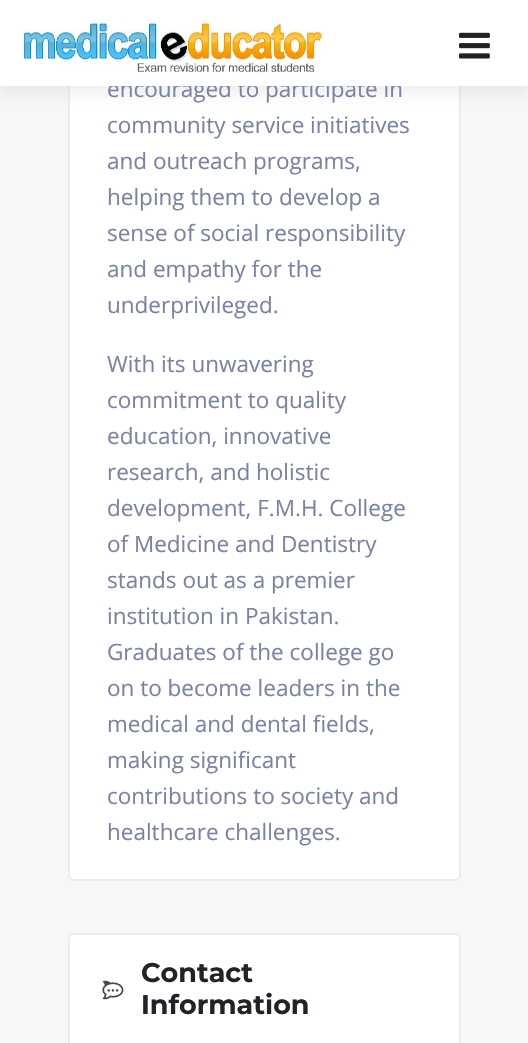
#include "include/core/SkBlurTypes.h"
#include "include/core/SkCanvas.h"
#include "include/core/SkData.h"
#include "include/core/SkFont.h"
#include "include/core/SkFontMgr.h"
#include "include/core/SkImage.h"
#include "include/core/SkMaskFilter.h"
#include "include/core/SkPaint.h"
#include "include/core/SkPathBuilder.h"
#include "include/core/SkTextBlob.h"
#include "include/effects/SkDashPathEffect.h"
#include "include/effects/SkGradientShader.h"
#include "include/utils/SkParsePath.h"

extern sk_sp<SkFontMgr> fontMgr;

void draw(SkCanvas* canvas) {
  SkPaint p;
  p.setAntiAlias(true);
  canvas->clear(SkColorSetRGB(247, 247, 249));
  p.setColor(SK_ColorWHITE);
  canvas->drawRoundRect(SkRect::MakeLTRB(69, -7, 460, 880), 5, 5, p);
  p.setStyle(SkPaint::kStroke_Style);
  p.setStrokeWidth(2);
  p.setColor(SkColorSetRGB(236, 236, 236));
  canvas->drawRoundRect(SkRect::MakeLTRB(69, -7, 460, 880), 5, 5, p);
  p.setStyle(SkPaint::kFill_Style);
  p.setColor(SkColorSetARGB(38, 132, 132, 132));
  p.setMaskFilter(SkMaskFilter::MakeBlur(kNormal_SkBlurStyle, 7.5f));
  canvas->drawRect(SkRect::MakeLTRB(0, 8, 528, 93), p);
  p.setMaskFilter(nullptr);
  p.setColor(SkColorSetARGB(13, 206, 206, 206));
  canvas->drawRect(SkRect::MakeLTRB(109, 86, 400, 87), p);
  p.setColor(SK_ColorWHITE);
  canvas->drawRoundRect(SkRect::MakeLTRB(69, 934, 460, 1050), 5, 5, p);
  p.setStyle(SkPaint::kStroke_Style);
  p.setColor(SkColorSetRGB(236, 236, 236));
  canvas->drawRoundRect(SkRect::MakeLTRB(69, 934, 460, 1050), 5, 5, p);
  canvas->drawImageRect(SkImages::DeferredFromEncodedData(SkData::MakeFromFileName("images/3.png")), SkRect::MakeLTRB(102, 980, 124, 1000), SkSamplingOptions());
  SkFont font1(fontMgr->matchFamilyStyle("Open Sans", SkFontStyle::Normal()), 22.5f);
  font1.setSubpixel(true);
  p.setStyle(SkPaint::kFill_Style);
  p.setColor(SkColorSetRGB(122, 130, 166));
  canvas->drawString("encouraged to participate in", 107, 97, font1, p);
  p.setColor(SK_ColorWHITE);
  canvas->drawRect(SkRect::MakeLTRB(0, 0, 528, 86), p);
  canvas->drawImageRect(SkImages::DeferredFromEncodedData(SkData::MakeFromFileName("images/2.png")), SkRect::MakeLTRB(459, 32, 490, 59), SkSamplingOptions());
  canvas->drawImageRect(SkImages::DeferredFromEncodedData(SkData::MakeFromFileName("images/1.png")), SkRect::MakeLTRB(23, 20, 323, 73), SkSamplingOptions());
  p.setColor(SkColorSetRGB(122, 130, 166));
  canvas->drawString("community service initiatives", 107, 133, font1, p);
  canvas->drawString("and outreach programs,", 107, 169, font1, p);
  canvas->drawString("helping them to develop a", 107, 205, font1, p);
  canvas->drawString("sense of social responsibility", 107, 241, font1, p);
  canvas->drawString("and empathy for the", 107, 277, font1, p);
  canvas->drawString("underprivileged.", 107, 313, font1, p);
  canvas->drawString("With its unwavering", 107, 372, font1, p);
  canvas->drawString("commitment to quality", 107, 408, font1, p);
  canvas->drawString("education, innovative", 107, 444, font1, p);
  canvas->drawString("research, and holistic", 107, 480, font1, p);
  canvas->drawString("development, F.M.H. College", 107, 516, font1, p);
  canvas->drawString("of Medicine and Dentistry", 107, 552, font1, p);
  canvas->drawString("stands out as a premier", 107, 588, font1, p);
  canvas->drawString("institution in Pakistan.", 107, 624, font1, p);
  canvas->drawString("Graduates of the college go", 107, 660, font1, p);
  canvas->drawString("on to become leaders in the", 107, 696, font1, p);
  canvas->drawString("medical and dental fields,", 107, 732, font1, p);
  canvas->drawString("making significant", 107, 768, font1, p);
  canvas->drawString("contributions to society and", 107, 804, font1, p);
  canvas->drawString("healthcare challenges.", 107, 840, font1, p);
  SkFont font2(fontMgr->matchFamilyStyle("Montserrat", SkFontStyle::Bold()), 27);
  font2.setSubpixel(true);
  p.setColor(SkColorSetRGB(32, 36, 40));
  canvas->drawString("Contact", 141, 982, font2, p);
  canvas->drawString("Information", 141, 1014, font2, p);
}
